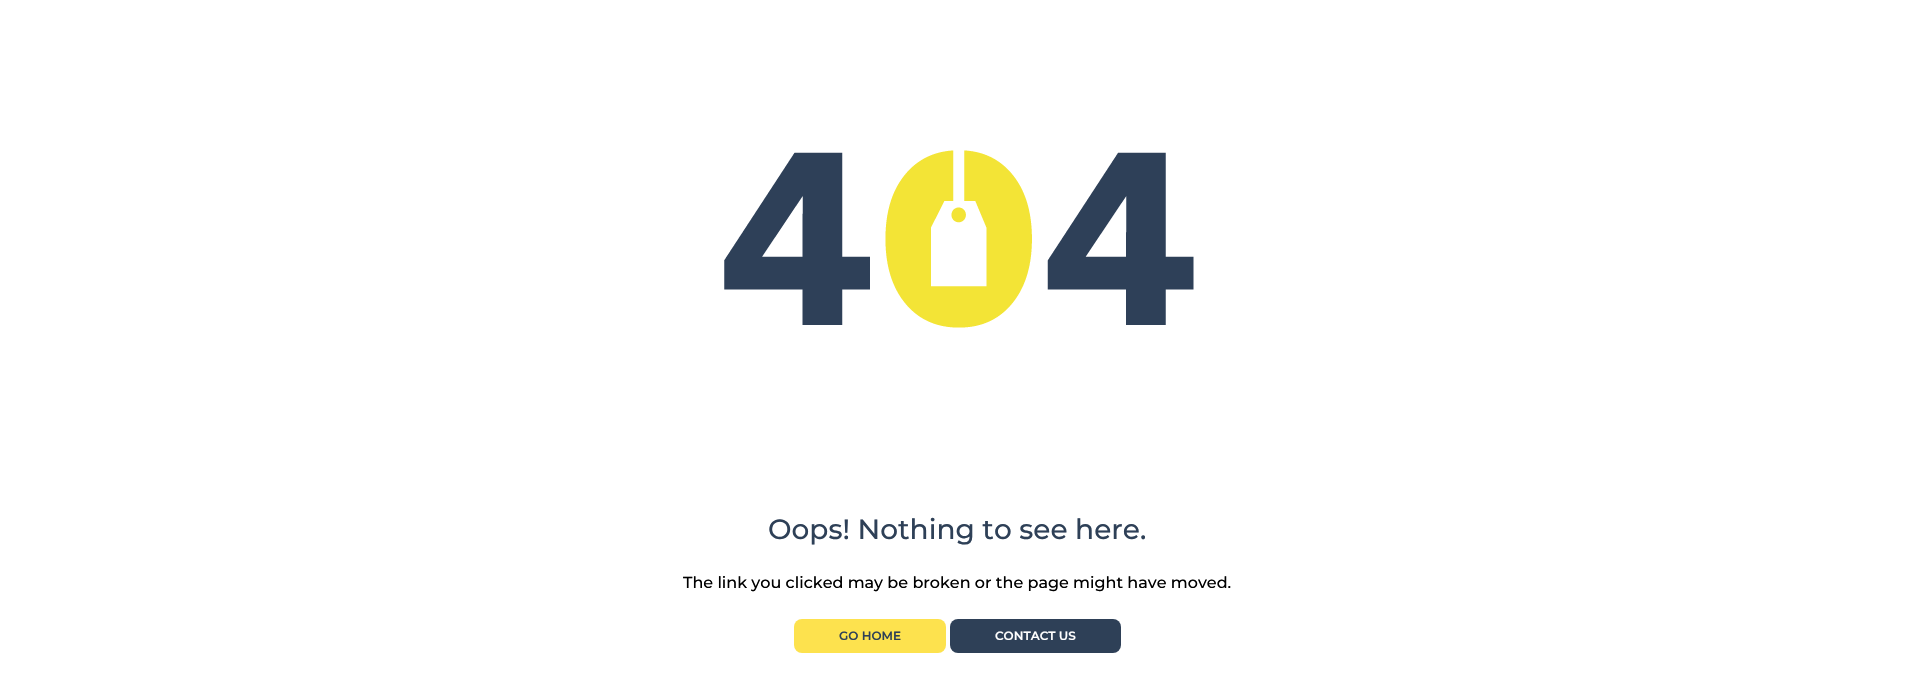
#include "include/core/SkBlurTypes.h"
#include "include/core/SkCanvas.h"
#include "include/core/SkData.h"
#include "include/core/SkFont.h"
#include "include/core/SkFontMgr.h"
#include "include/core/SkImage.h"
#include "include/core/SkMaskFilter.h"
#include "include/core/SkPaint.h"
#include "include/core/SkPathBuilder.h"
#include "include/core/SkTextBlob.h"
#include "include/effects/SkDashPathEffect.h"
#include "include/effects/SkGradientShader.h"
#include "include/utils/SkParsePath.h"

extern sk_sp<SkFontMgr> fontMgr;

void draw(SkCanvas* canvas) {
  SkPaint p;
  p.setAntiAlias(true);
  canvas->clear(SK_ColorWHITE);
  canvas->drawImageRect(SkImages::DeferredFromEncodedData(SkData::MakeFromFileName("images/1.png")), SkRect::MakeLTRB(724, 150, 1194, 328), SkSamplingOptions());
  p.setColor(SkColorSetRGB(253, 226, 78));
  canvas->drawRoundRect(SkRect::MakeLTRB(794, 619, 946, 653), 8, 8, p);
  p.setColor(SkColorSetRGB(46, 64, 87));
  canvas->drawRoundRect(SkRect::MakeLTRB(950, 619, 1121, 653), 8, 8, p);
  SkFont font1(fontMgr->matchFamilyStyle("Montserrat", SkFontStyle(500, SkFontStyle::kNormal_Width, SkFontStyle::kUpright_Slant)), 28);
  font1.setSubpixel(true);
  canvas->drawString("Oops! Nothing to see here.", 768, 539, font1, p);
  SkFont font2(fontMgr->matchFamilyStyle("Montserrat", SkFontStyle(500, SkFontStyle::kNormal_Width, SkFontStyle::kUpright_Slant)), 16);
  font2.setSubpixel(true);
  p.setColor(SK_ColorBLACK);
  canvas->drawString("The link you clicked may be broken or the page might have moved.", 683, 588, font2, p);
  SkFont font3(fontMgr->matchFamilyStyle("Montserrat", SkFontStyle(600, SkFontStyle::kNormal_Width, SkFontStyle::kUpright_Slant)), 12);
  font3.setSubpixel(true);
  p.setColor(SkColorSetRGB(46, 64, 87));
  canvas->drawString("GO HOME", 839, 640, font3, p);
  p.setColor(SK_ColorWHITE);
  canvas->drawString("CONTACT US", 995, 640, font3, p);
}
